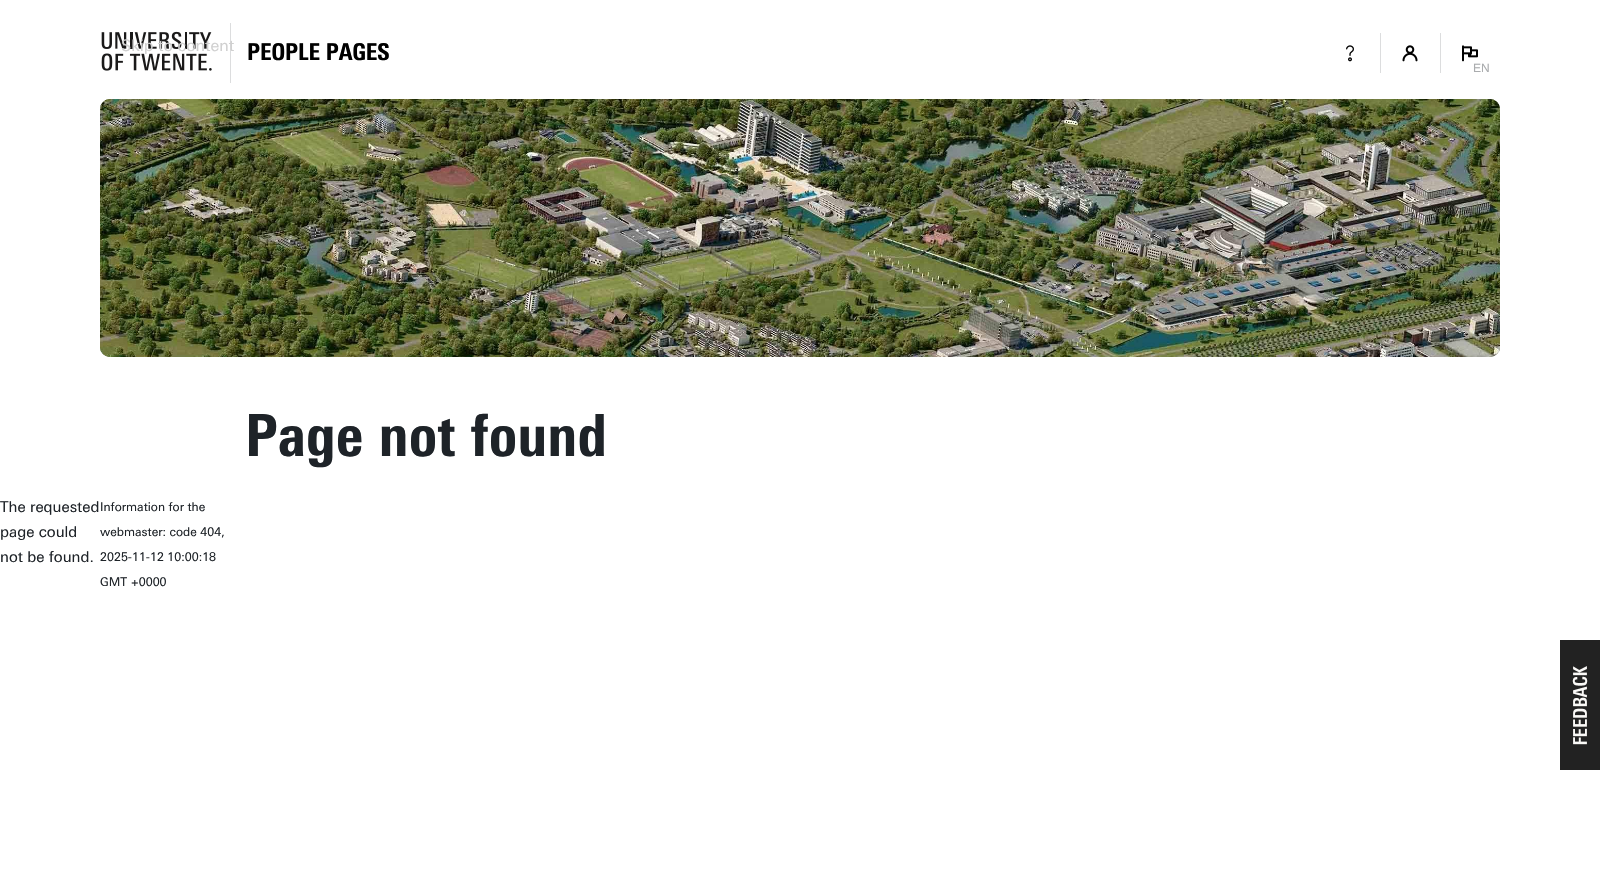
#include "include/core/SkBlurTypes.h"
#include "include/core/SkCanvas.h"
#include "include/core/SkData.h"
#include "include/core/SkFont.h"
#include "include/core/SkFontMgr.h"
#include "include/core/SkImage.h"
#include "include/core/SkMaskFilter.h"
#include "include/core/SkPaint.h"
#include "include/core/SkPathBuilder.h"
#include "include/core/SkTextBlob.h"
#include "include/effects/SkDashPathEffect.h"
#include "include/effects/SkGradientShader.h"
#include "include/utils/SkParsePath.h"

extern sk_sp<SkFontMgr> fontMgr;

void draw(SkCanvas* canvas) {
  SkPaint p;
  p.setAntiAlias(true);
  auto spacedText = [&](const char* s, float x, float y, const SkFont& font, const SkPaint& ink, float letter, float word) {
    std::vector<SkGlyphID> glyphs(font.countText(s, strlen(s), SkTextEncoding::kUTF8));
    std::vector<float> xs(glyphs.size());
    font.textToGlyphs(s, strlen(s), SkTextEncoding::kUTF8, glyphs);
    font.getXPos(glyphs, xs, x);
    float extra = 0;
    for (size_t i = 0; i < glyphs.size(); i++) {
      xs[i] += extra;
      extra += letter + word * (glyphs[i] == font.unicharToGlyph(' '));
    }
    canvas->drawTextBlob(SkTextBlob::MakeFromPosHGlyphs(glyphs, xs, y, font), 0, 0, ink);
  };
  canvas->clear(SK_ColorWHITE);
  canvas->drawImageRect(SkImages::DeferredFromEncodedData(SkData::MakeFromFileName("images/1.png")), SkRect::MakeLTRB(101, 31, 212, 71), SkSamplingOptions());
  p.setColor(SkColorSetRGB(220, 221, 222));
  canvas->drawRect(SkRect::MakeLTRB(230, 23, 231, 83), p);
  canvas->drawImageRect(SkImages::DeferredFromEncodedData(SkData::MakeFromFileName("images/2.png")), SkRect::MakeLTRB(1346, 45, 1354, 62), SkSamplingOptions());
  canvas->drawRect(SkRect::MakeLTRB(1380, 33, 1381, 73), p);
  canvas->drawImageRect(SkImages::DeferredFromEncodedData(SkData::MakeFromFileName("images/3.png")), SkRect::MakeLTRB(1402, 45, 1418, 62), SkSamplingOptions());
  canvas->drawRect(SkRect::MakeLTRB(1440, 33, 1441, 73), p);
  canvas->drawImageRect(SkImages::DeferredFromEncodedData(SkData::MakeFromFileName("images/4.png")), SkRect::MakeLTRB(1462, 45, 1478, 62), SkSamplingOptions());
  p.setColor(SkColorSetRGB(81, 90, 49));
  canvas->drawRoundRect(SkRect::MakeLTRB(100, 99, 1500, 357), 10, 10, p);
  canvas->drawImageRect(SkImages::DeferredFromEncodedData(SkData::MakeFromFileName("images/5.png")), SkRect::MakeLTRB(100, 99, 1500, 357), SkSamplingOptions());
  canvas->drawImageRect(SkImages::DeferredFromEncodedData(SkData::MakeFromFileName("images/6.png")), SkRect::MakeLTRB(1560, 640, 1600, 770), SkSamplingOptions());
  SkFont font1(fontMgr->matchFamilyStyle("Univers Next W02", SkFontStyle::Normal()), 16);
  font1.setSubpixel(true);
  p.setColor(SkColorSetRGB(208, 208, 208));
  canvas->drawString("Skip to content", 121, 51, font1, p);
  SkFont font2(fontMgr->matchFamilyStyle("Univers Next W02", SkFontStyle(900, SkFontStyle::kNormal_Width, SkFontStyle::kUpright_Slant)), 23);
  font2.setSubpixel(true);
  p.setColor(SK_ColorBLACK);
  canvas->drawString("PEOPLE PAGES", 247, 60, font2, p);
  SkFont font3(fontMgr->matchFamilyStyle("Liberation Sans", SkFontStyle::Normal()), 12);
  font3.setSubpixel(true);
  p.setColor(SkColorSetRGB(170, 172, 174));
  canvas->drawString("EN", 1473, 72, font3, p);
  SkFont font4(fontMgr->matchFamilyStyle("Univers Next W02", SkFontStyle(900, SkFontStyle::kNormal_Width, SkFontStyle::kUpright_Slant)), 58);
  font4.setSubpixel(true);
  p.setColor(SkColorSetRGB(30, 35, 40));
  spacedText("Page not found", 245, 456, font4, p, 0.5f, 0);
  SkFont font5(fontMgr->matchFamilyStyle("Univers Next W02", SkFontStyle::Normal()), 15);
  font5.setSubpixel(true);
  canvas->drawString("The requested", 0, 512, font5, p);
  canvas->drawString("page could", 0, 537, font5, p);
  canvas->drawString("not be found.", 0, 562, font5, p);
  SkFont font6(fontMgr->matchFamilyStyle("Univers Next W02", SkFontStyle::Normal()), 12);
  font6.setSubpixel(true);
  canvas->drawString("Information for the", 100, 511, font6, p);
  canvas->drawString("webmaster: code 404,", 100, 536, font6, p);
  canvas->drawString("2025-11-12 10:00:18", 100, 561, font6, p);
  canvas->drawString("GMT +0000", 100, 586, font6, p);
}
